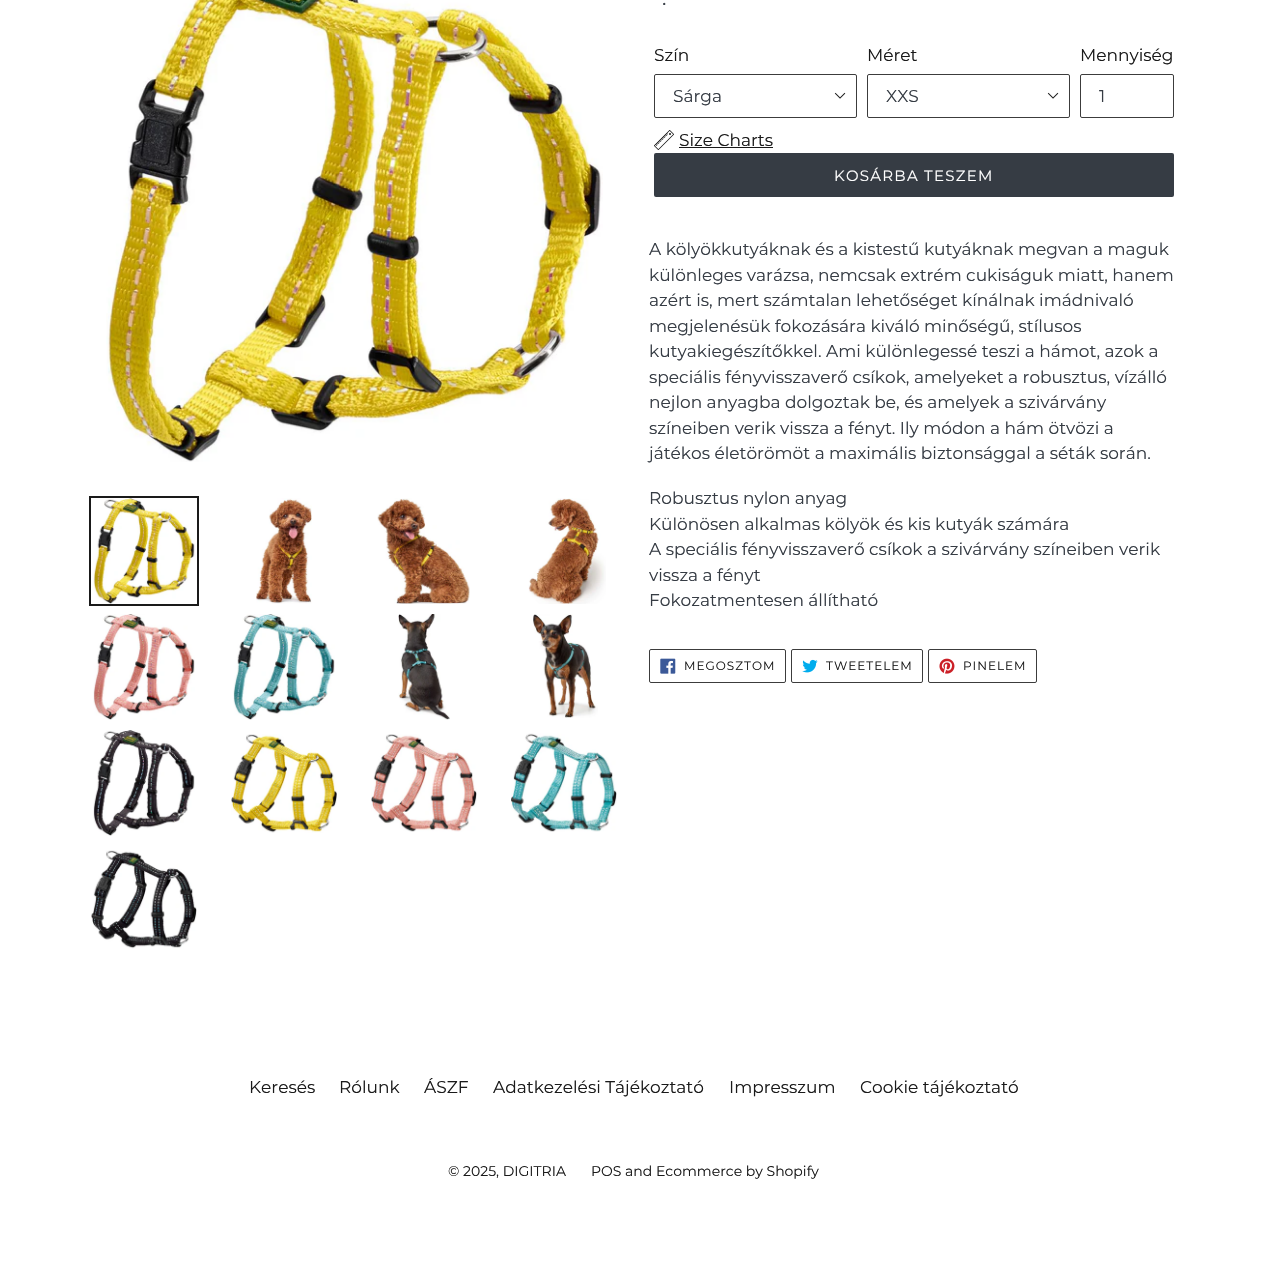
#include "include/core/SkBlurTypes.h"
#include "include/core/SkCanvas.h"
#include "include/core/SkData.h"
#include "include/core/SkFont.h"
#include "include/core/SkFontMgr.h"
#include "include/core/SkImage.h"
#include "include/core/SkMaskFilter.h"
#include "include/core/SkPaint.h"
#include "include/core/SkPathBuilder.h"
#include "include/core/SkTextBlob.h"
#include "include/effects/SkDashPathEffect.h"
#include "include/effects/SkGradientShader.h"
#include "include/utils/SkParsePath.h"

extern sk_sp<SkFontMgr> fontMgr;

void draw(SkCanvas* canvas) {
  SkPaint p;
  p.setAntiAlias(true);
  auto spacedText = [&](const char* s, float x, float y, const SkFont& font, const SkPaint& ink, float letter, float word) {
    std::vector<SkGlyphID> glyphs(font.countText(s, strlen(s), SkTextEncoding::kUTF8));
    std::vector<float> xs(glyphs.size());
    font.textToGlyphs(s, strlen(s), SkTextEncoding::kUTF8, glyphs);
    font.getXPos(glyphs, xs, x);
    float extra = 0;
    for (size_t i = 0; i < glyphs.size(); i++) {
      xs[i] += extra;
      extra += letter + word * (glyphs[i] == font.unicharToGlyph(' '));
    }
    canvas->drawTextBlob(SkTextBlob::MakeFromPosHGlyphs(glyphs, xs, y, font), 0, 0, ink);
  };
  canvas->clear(SK_ColorWHITE);
  canvas->drawImageRect(SkImages::DeferredFromEncodedData(SkData::MakeFromFileName("images/1.png")), SkRect::MakeLTRB(106, 0, 603, 462), SkSamplingOptions());
  p.setStyle(SkPaint::kStroke_Style);
  p.setStrokeWidth(2);
  p.setColor(SkColorSetRGB(26, 26, 26));
  canvas->drawRect(SkRect::MakeLTRB(90, 497, 198, 605), p);
  canvas->drawImageRect(SkImages::DeferredFromEncodedData(SkData::MakeFromFileName("images/2.png")), SkRect::MakeLTRB(93, 498, 195, 604), SkSamplingOptions());
  canvas->drawImageRect(SkImages::DeferredFromEncodedData(SkData::MakeFromFileName("images/3.png")), SkRect::MakeLTRB(256, 498, 312, 604), SkSamplingOptions());
  canvas->drawImageRect(SkImages::DeferredFromEncodedData(SkData::MakeFromFileName("images/4.png")), SkRect::MakeLTRB(377, 498, 470, 604), SkSamplingOptions());
  canvas->drawImageRect(SkImages::DeferredFromEncodedData(SkData::MakeFromFileName("images/5.png")), SkRect::MakeLTRB(528, 498, 606, 604), SkSamplingOptions());
  canvas->drawImageRect(SkImages::DeferredFromEncodedData(SkData::MakeFromFileName("images/6.png")), SkRect::MakeLTRB(93, 614, 195, 720), SkSamplingOptions());
  canvas->drawImageRect(SkImages::DeferredFromEncodedData(SkData::MakeFromFileName("images/7.png")), SkRect::MakeLTRB(233, 614, 335, 720), SkSamplingOptions());
  canvas->drawImageRect(SkImages::DeferredFromEncodedData(SkData::MakeFromFileName("images/8.png")), SkRect::MakeLTRB(398, 614, 450, 720), SkSamplingOptions());
  canvas->drawImageRect(SkImages::DeferredFromEncodedData(SkData::MakeFromFileName("images/9.png")), SkRect::MakeLTRB(533, 614, 598, 718), SkSamplingOptions());
  canvas->drawImageRect(SkImages::DeferredFromEncodedData(SkData::MakeFromFileName("images/10.png")), SkRect::MakeLTRB(93, 730, 195, 836), SkSamplingOptions());
  canvas->drawImageRect(SkImages::DeferredFromEncodedData(SkData::MakeFromFileName("images/11.png")), SkRect::MakeLTRB(231, 734, 337, 833), SkSamplingOptions());
  canvas->drawImageRect(SkImages::DeferredFromEncodedData(SkData::MakeFromFileName("images/12.png")), SkRect::MakeLTRB(371, 734, 477, 832), SkSamplingOptions());
  canvas->drawImageRect(SkImages::DeferredFromEncodedData(SkData::MakeFromFileName("images/13.png")), SkRect::MakeLTRB(511, 733, 617, 832), SkSamplingOptions());
  canvas->drawImageRect(SkImages::DeferredFromEncodedData(SkData::MakeFromFileName("images/14.png")), SkRect::MakeLTRB(91, 850, 197, 949), SkSamplingOptions());
  canvas->drawImageRect(SkImages::DeferredFromEncodedData(SkData::MakeFromFileName("images/15.png")), SkRect::MakeLTRB(834, 92, 846, 99), SkSamplingOptions());
  p.setStrokeWidth(1);
  p.setColor(SkColorSetRGB(60, 60, 60));
  canvas->drawRoundRect(SkRect::MakeLTRB(654.5f, 74.5f, 856.5f, 117.5f), 1.5f, 1.5f, p);
  canvas->drawImageRect(SkImages::DeferredFromEncodedData(SkData::MakeFromFileName("images/15.png")), SkRect::MakeLTRB(1047, 92, 1059, 99), SkSamplingOptions());
  canvas->drawRoundRect(SkRect::MakeLTRB(867.5f, 74.5f, 1069.5f, 117.5f), 1.5f, 1.5f, p);
  canvas->drawRoundRect(SkRect::MakeLTRB(1080.5f, 74.5f, 1173.5f, 117.5f), 1.5f, 1.5f, p);
  canvas->drawImageRect(SkImages::DeferredFromEncodedData(SkData::MakeFromFileName("images/16.png")), SkRect::MakeLTRB(654, 130, 674, 150), SkSamplingOptions());
  p.setStyle(SkPaint::kFill_Style);
  p.setColor(SkColorSetRGB(26, 26, 26));
  canvas->drawRect(SkRect::MakeLTRB(679, 147, 773, 148), p);
  p.setColor(SkColorSetRGB(54, 60, 68));
  canvas->drawRoundRect(SkRect::MakeLTRB(654, 153, 1174, 197), 2, 2, p);
  p.setStyle(SkPaint::kStroke_Style);
  p.setColor(SkColorSetRGB(60, 60, 60));
  canvas->drawRoundRect(SkRect::MakeLTRB(649.5f, 649.5f, 785.5f, 682.5f), 1.5f, 1.5f, p);
  canvas->drawImageRect(SkImages::DeferredFromEncodedData(SkData::MakeFromFileName("images/17.png")), SkRect::MakeLTRB(660, 658, 676, 674), SkSamplingOptions());
  canvas->drawRoundRect(SkRect::MakeLTRB(791.5f, 649.5f, 922.5f, 682.5f), 1.5f, 1.5f, p);
  canvas->drawImageRect(SkImages::DeferredFromEncodedData(SkData::MakeFromFileName("images/18.png")), SkRect::MakeLTRB(802, 659, 818, 673), SkSamplingOptions());
  canvas->drawRoundRect(SkRect::MakeLTRB(928.5f, 649.5f, 1036.5f, 682.5f), 1.5f, 1.5f, p);
  canvas->drawImageRect(SkImages::DeferredFromEncodedData(SkData::MakeFromFileName("images/19.png")), SkRect::MakeLTRB(939, 658, 955, 674), SkSamplingOptions());
  SkFont font1(fontMgr->matchFamilyStyle("Montserrat", SkFontStyle(100, SkFontStyle::kNormal_Width, SkFontStyle::kUpright_Slant)), 21);
  font1.setSubpixel(true);
  p.setStyle(SkPaint::kFill_Style);
  p.setColor(SkColorSetRGB(54, 60, 68));
  canvas->drawString(".", 662, 5, font1, p);
  SkFont font2(fontMgr->matchFamilyStyle("Montserrat", SkFontStyle(100, SkFontStyle::kNormal_Width, SkFontStyle::kUpright_Slant)), 17);
  font2.setSubpixel(true);
  p.setColor(SkColorSetRGB(26, 26, 26));
  canvas->drawString("Szín", 654, 61, font2, p);
  p.setColor(SkColorSetRGB(54, 60, 68));
  canvas->drawString("Sárga", 673, 102, font2, p);
  p.setColor(SkColorSetRGB(26, 26, 26));
  canvas->drawString("Méret", 867, 61, font2, p);
  p.setColor(SkColorSetRGB(54, 60, 68));
  canvas->drawString("XXS", 886, 102, font2, p);
  p.setColor(SkColorSetRGB(26, 26, 26));
  canvas->drawString("Mennyiség", 1080, 61, font2, p);
  p.setColor(SkColorSetRGB(54, 60, 68));
  canvas->drawString("1", 1099, 102, font2, p);
  p.setColor(SkColorSetRGB(26, 26, 26));
  canvas->drawString("Size Charts", 679, 146, font2, p);
  SkFont font3(fontMgr->matchFamilyStyle("Montserrat", SkFontStyle(100, SkFontStyle::kNormal_Width, SkFontStyle::kUpright_Slant)), 15);
  font3.setSubpixel(true);
  p.setColor(SK_ColorWHITE);
  spacedText("KOSÁRBA TESZEM", 834, 181, font3, p, 1.25f, 0);
  p.setColor(SkColorSetRGB(54, 60, 68));
  canvas->drawString("A kölyökkutyáknak és a kistestű kutyáknak megvan a maguk", 649, 255, font2, p);
  canvas->drawString("különleges varázsa, nemcsak extrém cukiságuk miatt, hanem", 649, 281, font2, p);
  canvas->drawString("azért is, mert számtalan lehetőséget kínálnak imádnivaló", 649, 306, font2, p);
  canvas->drawString("megjelenésük fokozására kiváló minőségű, stílusos", 649, 332, font2, p);
  canvas->drawString("kutyakiegészítőkkel. Ami különlegessé teszi a hámot, azok a", 649, 357, font2, p);
  canvas->drawString("speciális fényvisszaverő csíkok, amelyeket a robusztus, vízálló", 649, 383, font2, p);
  canvas->drawString("nejlon anyagba dolgoztak be, és amelyek a szivárvány", 649, 408, font2, p);
  canvas->drawString("színeiben verik vissza a fényt. Ily módon a hám ötvözi a", 649, 434, font2, p);
  canvas->drawString("játékos életörömöt a maximális biztonsággal a séták során.", 649, 459, font2, p);
  canvas->drawString("Robusztus nylon anyag", 649, 504, font2, p);
  canvas->drawString("Különösen alkalmas kölyök és kis kutyák számára", 649, 530, font2, p);
  canvas->drawString("A speciális fényvisszaverő csíkok a szivárvány színeiben verik", 649, 555, font2, p);
  canvas->drawString("vissza a fényt", 649, 581, font2, p);
  canvas->drawString("Fokozatmentesen állítható", 649, 606, font2, p);
  SkFont font4(fontMgr->matchFamilyStyle("Montserrat", SkFontStyle(100, SkFontStyle::kNormal_Width, SkFontStyle::kUpright_Slant)), 12);
  font4.setSubpixel(true);
  p.setColor(SkColorSetRGB(26, 26, 26));
  spacedText("MEGOSZTOM", 684, 670, font4, p, 1, 0);
  spacedText("TWEETELEM", 826, 670, font4, p, 1, 0);
  spacedText("PINELEM", 963, 670, font4, p, 1, 0);
  canvas->drawString("Keresés", 249, 1093, font2, p);
  canvas->drawString("Rólunk", 339, 1093, font2, p);
  canvas->drawString("ÁSZF", 424, 1093, font2, p);
  canvas->drawString("Adatkezelési Tájékoztató", 493, 1093, font2, p);
  canvas->drawString("Impresszum", 729, 1093, font2, p);
  canvas->drawString("Cookie tájékoztató", 860, 1093, font2, p);
  SkFont font5(fontMgr->matchFamilyStyle("Montserrat", SkFontStyle(100, SkFontStyle::kNormal_Width, SkFontStyle::kUpright_Slant)), 14);
  font5.setSubpixel(true);
  canvas->drawString("© 2025, DIGITRIA", 448, 1176, font5, p);
  canvas->drawString("POS and Ecommerce by Shopify", 591, 1176, font5, p);
}
